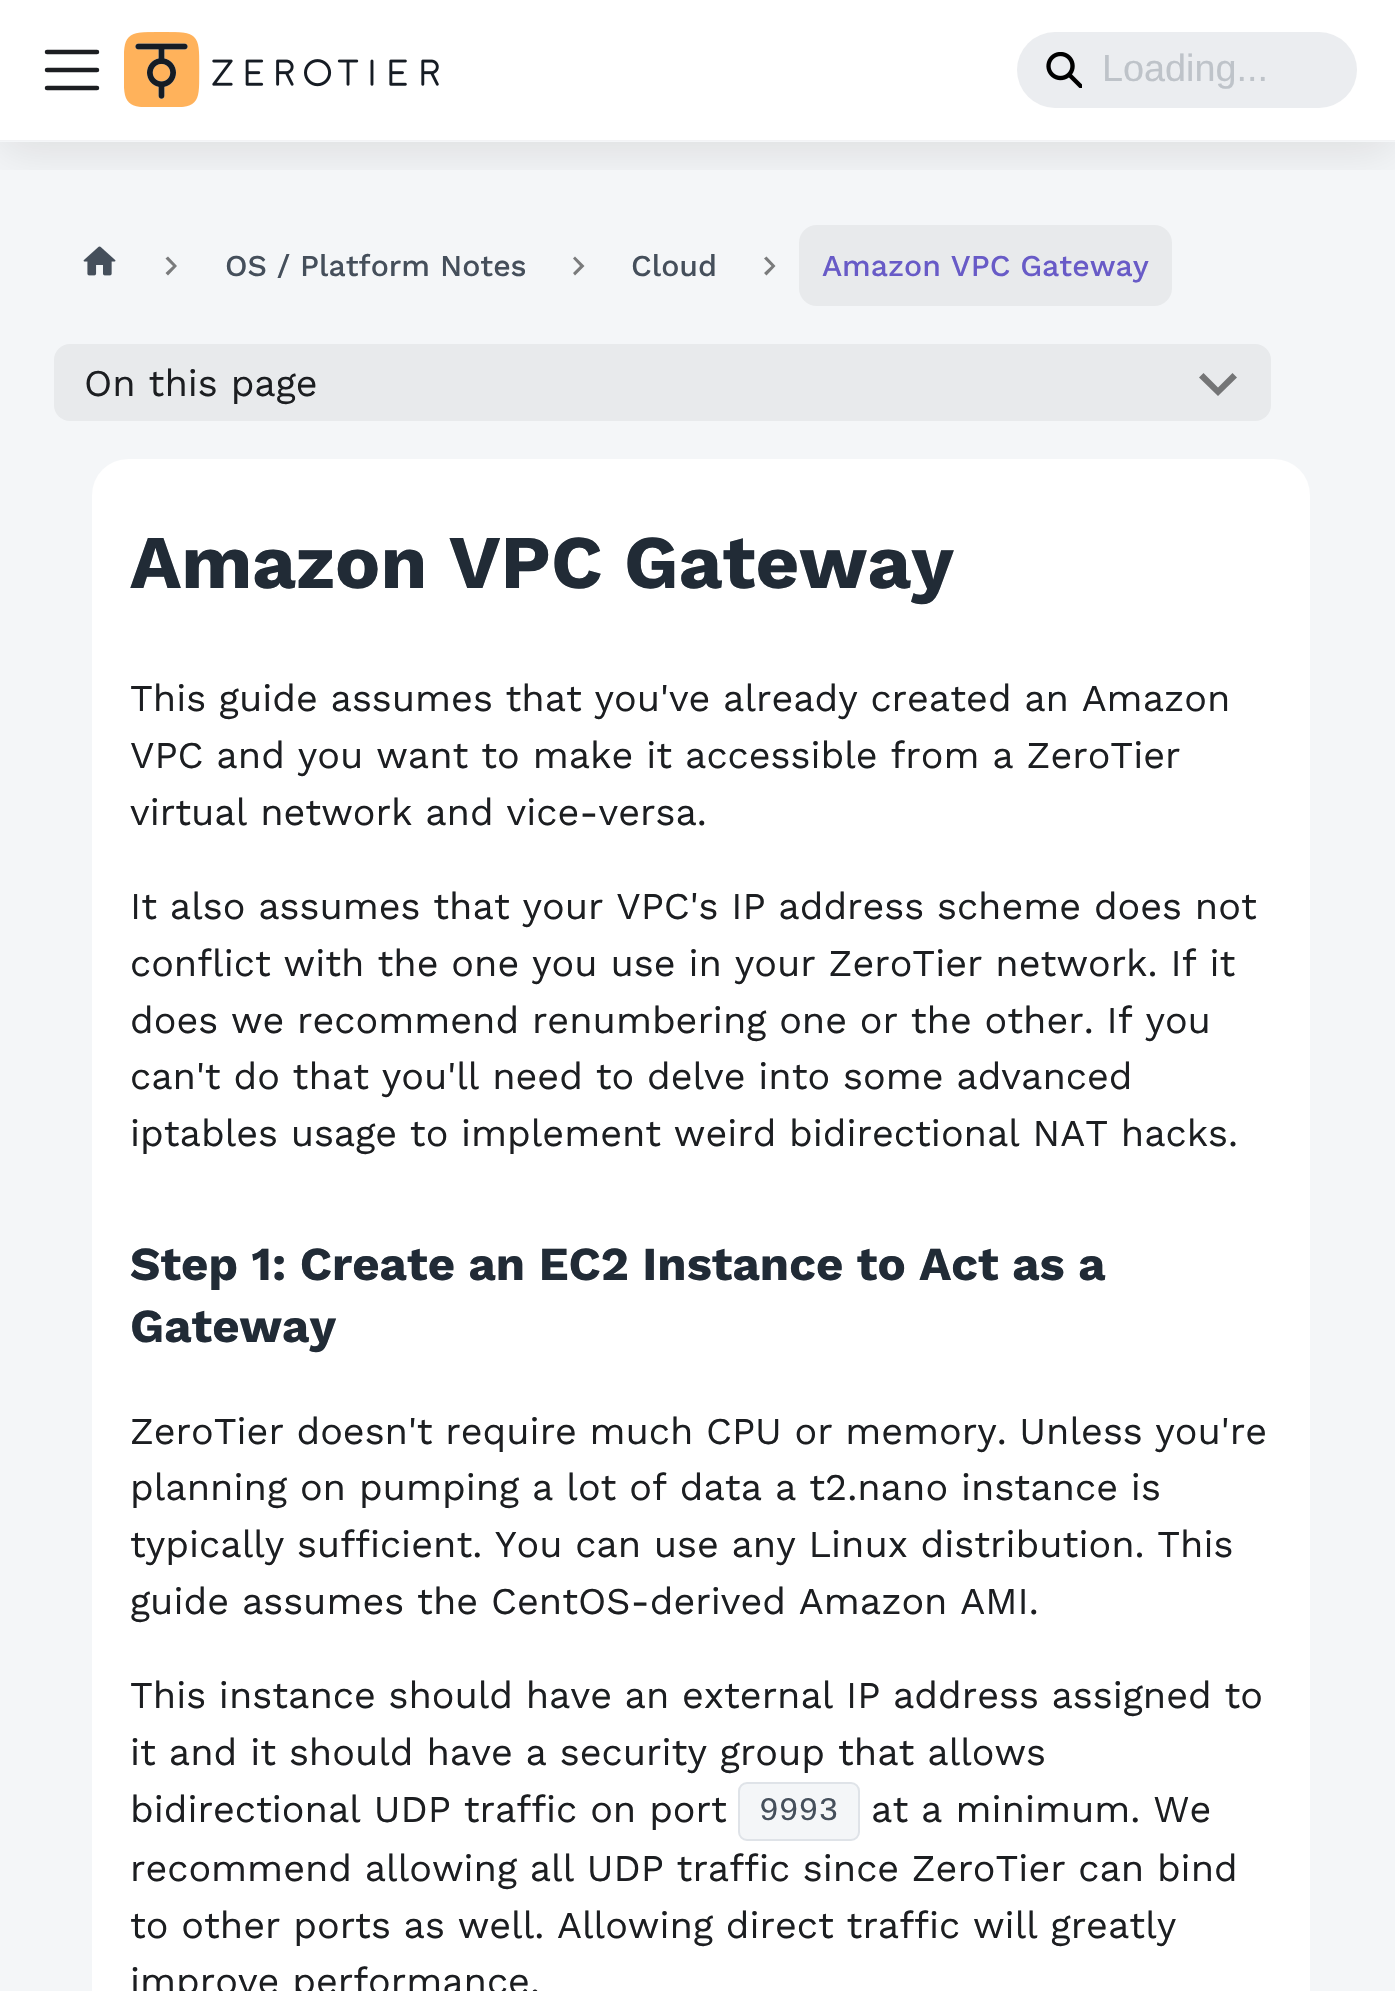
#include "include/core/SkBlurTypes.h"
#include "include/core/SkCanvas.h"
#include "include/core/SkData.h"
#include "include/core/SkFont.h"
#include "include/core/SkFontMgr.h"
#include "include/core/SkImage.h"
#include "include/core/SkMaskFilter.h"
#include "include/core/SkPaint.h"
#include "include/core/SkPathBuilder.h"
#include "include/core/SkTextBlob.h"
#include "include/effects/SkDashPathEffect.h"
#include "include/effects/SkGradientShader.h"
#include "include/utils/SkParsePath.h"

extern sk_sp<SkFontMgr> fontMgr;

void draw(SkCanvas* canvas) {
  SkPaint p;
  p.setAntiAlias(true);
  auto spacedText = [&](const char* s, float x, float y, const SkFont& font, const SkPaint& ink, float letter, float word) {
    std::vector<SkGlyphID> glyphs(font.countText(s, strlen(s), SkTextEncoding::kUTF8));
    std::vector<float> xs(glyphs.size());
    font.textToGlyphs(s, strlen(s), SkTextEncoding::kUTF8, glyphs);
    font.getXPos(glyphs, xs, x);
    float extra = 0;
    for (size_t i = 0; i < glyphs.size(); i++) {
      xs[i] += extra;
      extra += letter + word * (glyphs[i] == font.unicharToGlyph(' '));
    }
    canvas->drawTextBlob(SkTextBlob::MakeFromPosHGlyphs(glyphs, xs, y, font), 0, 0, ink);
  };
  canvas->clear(SkColorSetRGB(244, 246, 248));
  canvas->save();
  canvas->clipRect(SkRect::MakeLTRB(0, 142, 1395, 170));
  p.setColor(SkColorSetARGB(26, 0, 0, 0));
  p.setMaskFilter(SkMaskFilter::MakeBlur(kNormal_SkBlurStyle, 22.5f));
  canvas->drawRect(SkRect::MakeLTRB(0, 9, 1395, 151), p);
  p.setMaskFilter(nullptr);
  canvas->restore();
  p.setColor(SkColorSetARGB(242, 255, 255, 255));
  canvas->drawRect(SkRect::MakeLTRB(0, 0, 1395, 140), p);
  p.setColor(SkColorSetRGB(242, 243, 245));
  canvas->drawRect(SkRect::MakeLTRB(0, 140, 1395, 141), p);
  p.setStyle(SkPaint::kStroke_Style);
  p.setStrokeWidth(4.5f);
  p.setStrokeCap(SkPaint::kRound_Cap);
  p.setColor(SkColorSetRGB(28, 30, 33));
  canvas->drawPath(SkPathBuilder().moveTo(47, 52).lineTo(97, 52).moveTo(47, 70).lineTo(97, 70).moveTo(47, 88).lineTo(97, 88).detach(), p);
  canvas->drawImageRect(SkImages::DeferredFromEncodedData(SkData::MakeFromFileName("images/1.png")), SkRect::MakeLTRB(124, 32, 439, 107), SkSamplingOptions());
  p.setStyle(SkPaint::kFill_Style);
  p.setColor(SkColorSetRGB(235, 237, 240));
  canvas->drawRoundRect(SkRect::MakeLTRB(1017, 32, 1357, 108), 38, 38, p);
  canvas->drawImageRect(SkImages::DeferredFromEncodedData(SkData::MakeFromFileName("images/2.png")), SkRect::MakeLTRB(1046, 52, 1082, 88), SkSamplingOptions());
  canvas->drawImageRect(SkImages::DeferredFromEncodedData(SkData::MakeFromFileName("images/3.png")), SkRect::MakeLTRB(83, 246, 116, 276), SkSamplingOptions());
  p.setColor(SkColorSetRGB(122, 123, 124));
  canvas->drawPath(SkPathBuilder().moveTo(168, 256.5f).lineTo(165.5f, 258.5f).lineTo(173, 266).lineTo(165.5f, 273).lineTo(168, 275.5f).lineTo(177, 266).close().detach(), p);
  canvas->drawPath(SkPathBuilder().moveTo(575, 256.5f).lineTo(573, 258.5f).lineTo(580, 266).lineTo(573, 273).lineTo(575, 275.5f).lineTo(584.5f, 266).close().detach(), p);
  canvas->drawPath(SkPathBuilder().moveTo(766.5f, 256.5f).lineTo(764, 258.5f).lineTo(771.5f, 266).lineTo(764, 273).lineTo(766.5f, 275.5f).lineTo(775.5f, 266).close().detach(), p);
  p.setColor(SkColorSetRGB(232, 234, 236));
  canvas->drawRoundRect(SkRect::MakeLTRB(799, 225, 1172, 306), 18, 18, p);
  canvas->drawRoundRect(SkRect::MakeLTRB(54, 344, 1271, 421), 16, 16, p);
  p.setColor(SkColorSetRGB(116, 117, 118));
  canvas->drawPath(SkPathBuilder().moveTo(1232.5f, 373).lineTo(1218, 387.5f).lineTo(1203.5f, 373).lineTo(1199, 377.5f).lineTo(1218, 396).lineTo(1237, 377.5f).close().detach(), p);
  p.setColor(SK_ColorWHITE);
  canvas->drawRoundRect(SkRect::MakeLTRB(92, 459, 1310, 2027), 36, 36, p);
  p.setColor(SkColorSetRGB(244, 246, 248));
  canvas->drawRoundRect(SkRect::MakeLTRB(739, 1783, 859, 1840), 8, 8, p);
  p.setStyle(SkPaint::kStroke_Style);
  p.setStrokeWidth(2);
  p.setStrokeCap(SkPaint::kButt_Cap);
  p.setColor(SkColorSetRGB(223, 227, 232));
  canvas->drawRoundRect(SkRect::MakeLTRB(739, 1783, 859, 1840), 8, 8, p);
  SkFont font1(fontMgr->matchFamilyStyle("Liberation Sans", SkFontStyle::Normal()), 37.8f);
  font1.setSubpixel(true);
  p.setStyle(SkPaint::kFill_Style);
  p.setColor(SkColorSetRGB(190, 195, 201));
  canvas->drawString("Loading...", 1102, 81, font1, p);
  SkFont font2(fontMgr->matchFamilyStyle("Work Sans", SkFontStyle(500, SkFontStyle::kNormal_Width, SkFontStyle::kUpright_Slant)), 30.25f);
  font2.setSubpixel(true);
  p.setColor(SkColorSetRGB(69, 79, 91));
  canvas->drawString("OS / Platform Notes", 225, 276, font2, p);
  canvas->drawString("Cloud", 631, 276, font2, p);
  p.setColor(SkColorSetRGB(104, 91, 199));
  canvas->drawString("Amazon VPC Gateway", 822, 276, font2, p);
  SkFont font3(fontMgr->matchFamilyStyle("Work Sans", SkFontStyle::Normal()), 37.8f);
  font3.setSubpixel(true);
  p.setColor(SkColorSetRGB(28, 30, 33));
  canvas->drawString("On this page", 84, 396, font3, p);
  SkFont font4(fontMgr->matchFamilyStyle("Work Sans", SkFontStyle::Bold()), 75.6f);
  font4.setSubpixel(true);
  p.setColor(SkColorSetRGB(33, 43, 54));
  canvas->drawString("Amazon VPC Gateway", 130, 588, font4, p);
  p.setColor(SkColorSetRGB(28, 30, 33));
  spacedText("This guide assumes that you've already created an Amazon", 130, 711, font3, p, 0, -0.25f);
  canvas->drawString("VPC and you want to make it accessible from a ZeroTier", 130, 768, font3, p);
  canvas->drawString("virtual network and vice-versa.", 130, 825, font3, p);
  spacedText("It also assumes that your VPC's IP address scheme does not", 130, 919, font3, p, 0, -0.1f);
  canvas->drawString("conflict with the one you use in your ZeroTier network. If it", 130, 976, font3, p);
  spacedText("does we recommend renumbering one or the other. If you", 130, 1033, font3, p, 0, -0.1f);
  spacedText("can't do that you'll need to delve into some advanced", 130, 1089, font3, p, 0, -0.1f);
  spacedText("iptables usage to implement weird bidirectional NAT hacks.", 130, 1146, font3, p, 0, -0.25f);
  SkFont font5(fontMgr->matchFamilyStyle("Work Sans", SkFontStyle::Bold()), 47.25f);
  font5.setSubpixel(true);
  p.setColor(SkColorSetRGB(33, 43, 54));
  canvas->drawString("Step 1: Create an EC2 Instance to Act as a", 130, 1280, font5, p);
  canvas->drawString("Gateway", 130, 1342, font5, p);
  p.setColor(SkColorSetRGB(28, 30, 33));
  spacedText("ZeroTier doesn't require much CPU or memory. Unless you're", 130, 1444, font3, p, 0, -0.25f);
  canvas->drawString("planning on pumping a lot of data a t2.nano instance is", 130, 1500, font3, p);
  spacedText("typically sufficient. You can use any Linux distribution. This", 130, 1557, font3, p, 0, -0.25f);
  canvas->drawString("guide assumes the CentOS-derived Amazon AMI.", 130, 1614, font3, p);
  spacedText("This instance should have an external IP address assigned to", 130, 1708, font3, p, 0, -0.25f);
  canvas->drawString("it and it should have a security group that allows", 130, 1765, font3, p);
  canvas->drawString("bidirectional UDP traffic on port", 130, 1822, font3, p);
  SkFont font6(fontMgr->matchFamilyStyle("Liberation Mono", SkFontStyle::Normal()), 33);
  font6.setSubpixel(true);
  p.setColor(SkColorSetRGB(69, 79, 91));
  canvas->drawString("9993", 759, 1820, font6, p);
  p.setColor(SkColorSetRGB(28, 30, 33));
  canvas->drawString("at a minimum. We", 871, 1822, font3, p);
  spacedText("recommend allowing all UDP traffic since ZeroTier can bind", 130, 1881, font3, p, 0, -0.25f);
  spacedText("to other ports as well. Allowing direct traffic will greatly", 130, 1938, font3, p, 0, -0.1f);
  canvas->drawString("improve performance.", 130, 1994, font3, p);
}
